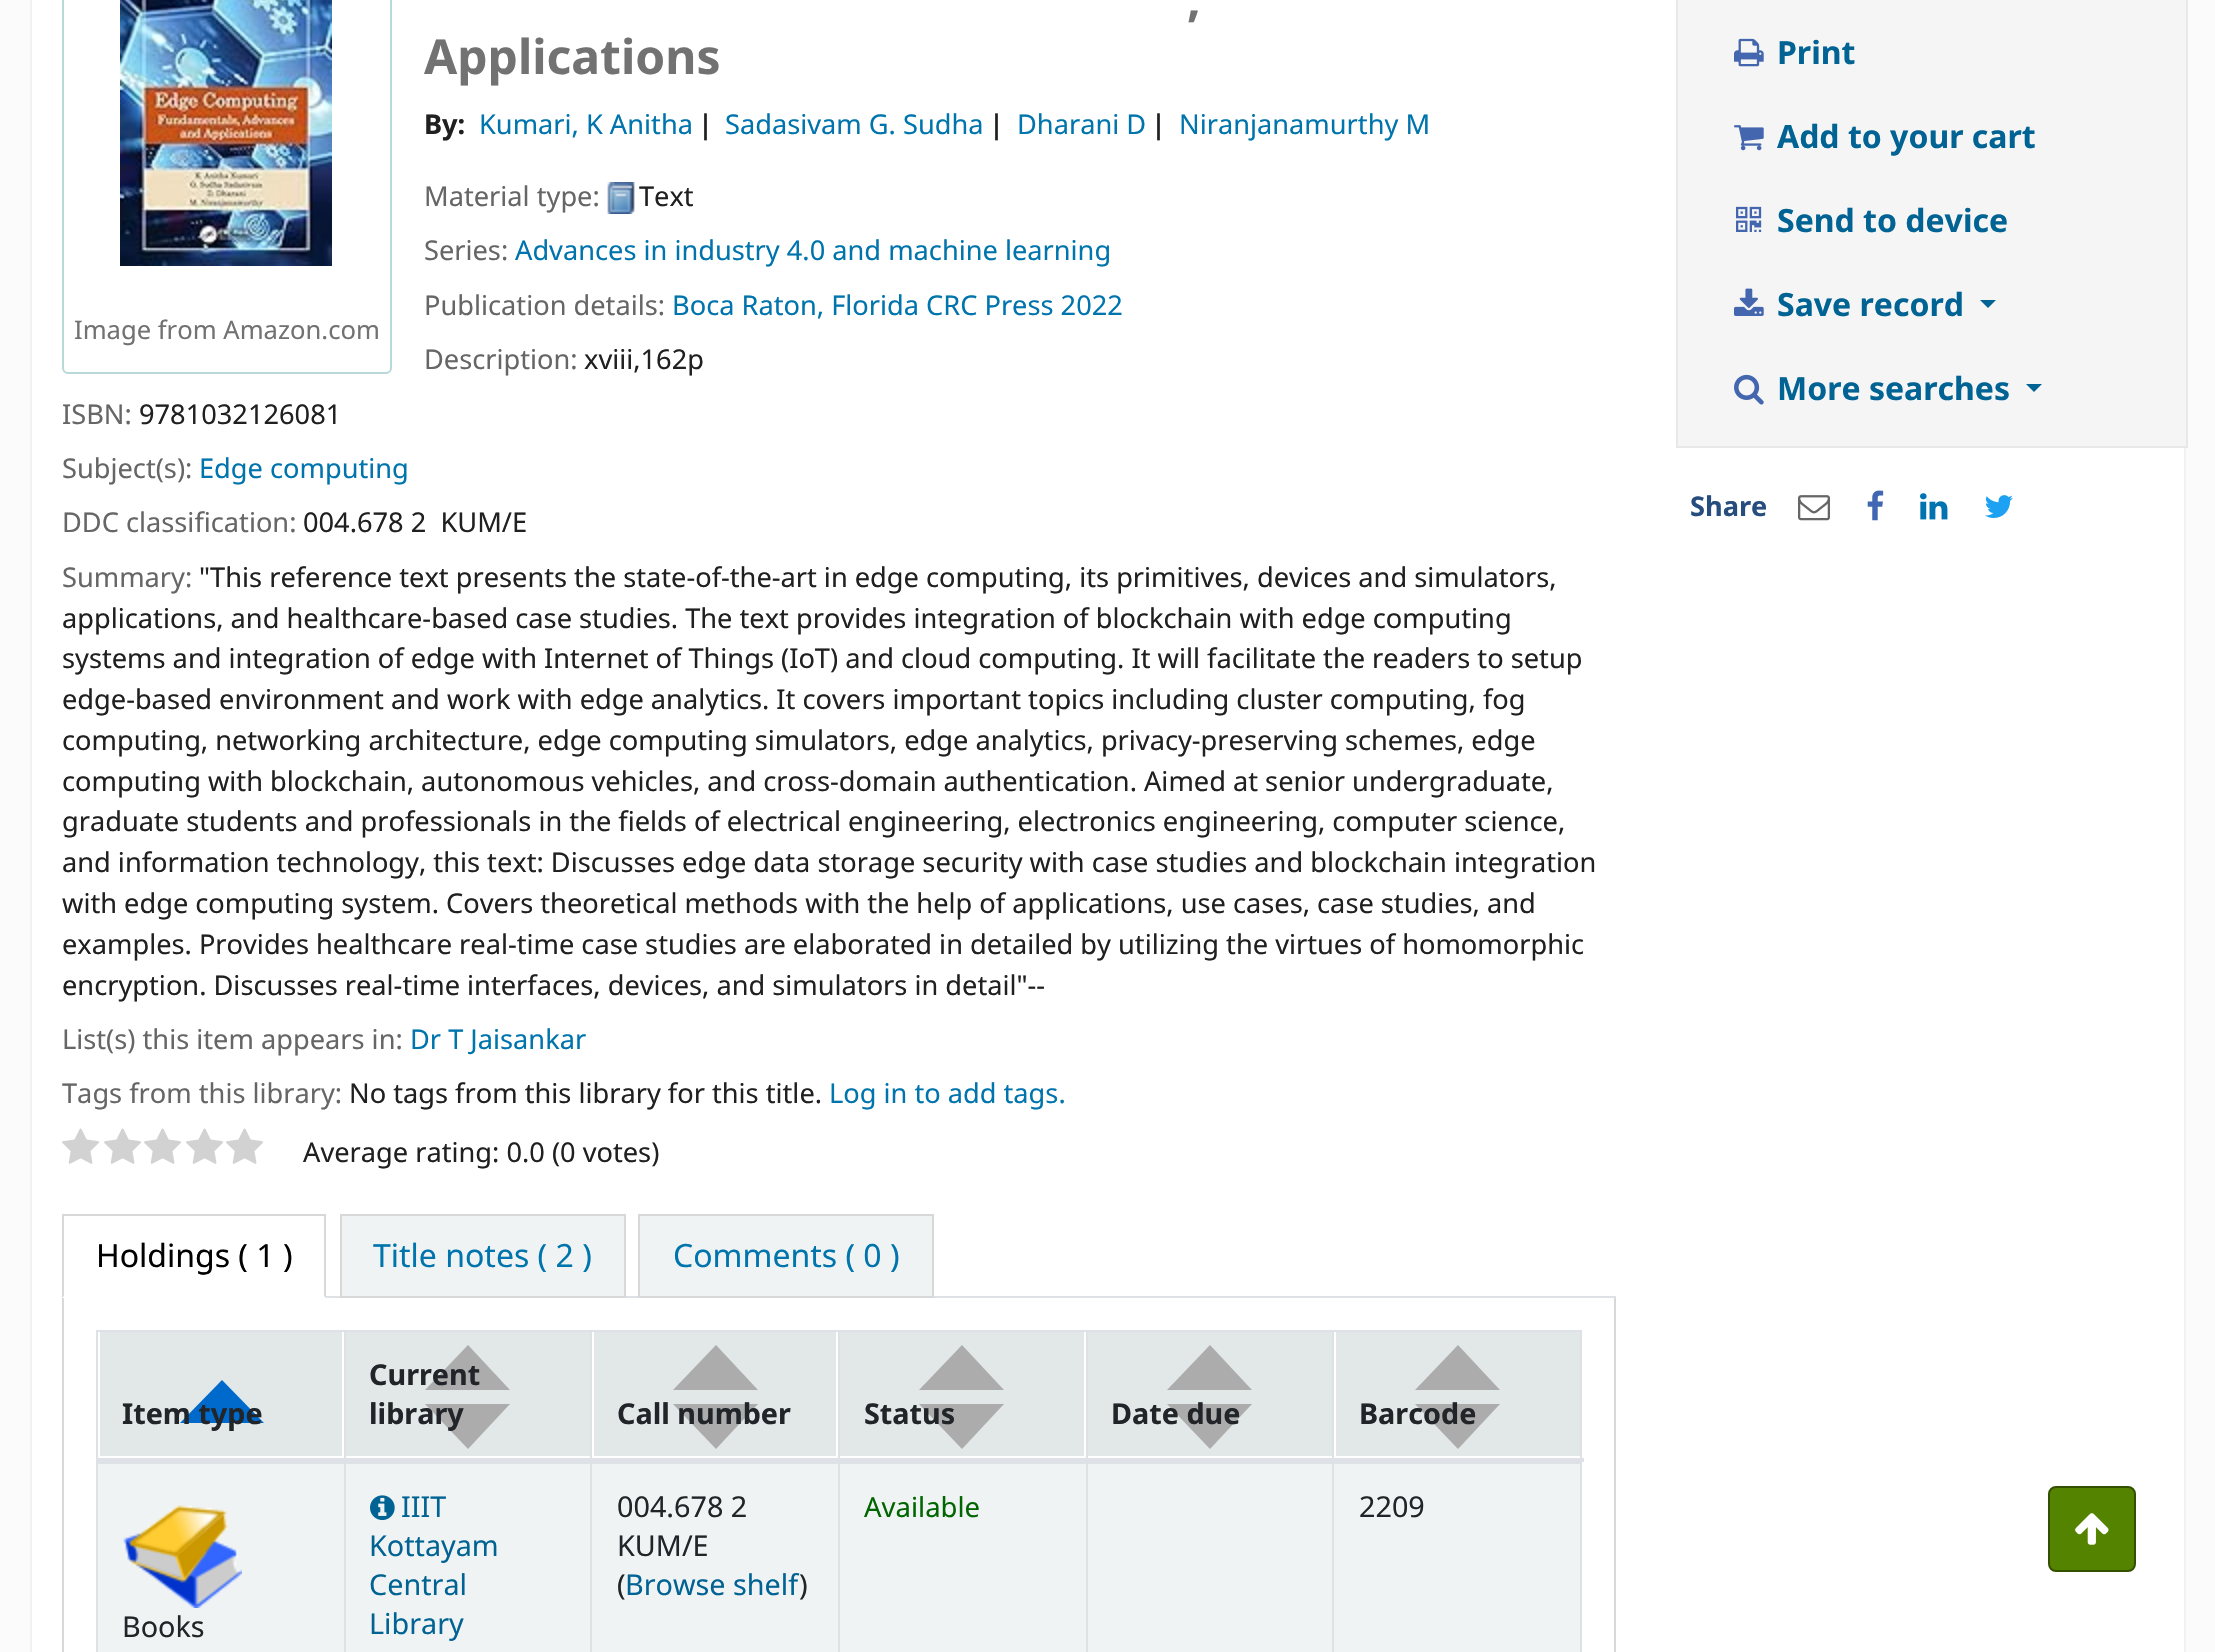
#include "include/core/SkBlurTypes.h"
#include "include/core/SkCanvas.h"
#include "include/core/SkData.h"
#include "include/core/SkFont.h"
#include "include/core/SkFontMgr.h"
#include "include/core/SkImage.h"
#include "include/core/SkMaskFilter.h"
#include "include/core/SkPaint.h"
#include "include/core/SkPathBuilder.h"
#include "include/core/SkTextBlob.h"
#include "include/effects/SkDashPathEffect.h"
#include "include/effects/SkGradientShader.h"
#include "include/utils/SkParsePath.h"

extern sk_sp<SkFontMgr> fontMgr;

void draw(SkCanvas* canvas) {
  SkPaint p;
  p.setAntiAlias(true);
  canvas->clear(SkColorSetRGB(251, 251, 251));
  p.setColor(SK_ColorWHITE);
  canvas->drawRect(SkRect::MakeLTRB(31, -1, 2185, 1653), p);
  p.setStyle(SkPaint::kStroke_Style);
  p.setStrokeWidth(2);
  p.setColor(SkColorSetRGB(240, 243, 243));
  canvas->drawRect(SkRect::MakeLTRB(31, -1, 2185, 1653), p);
  canvas->drawImageRect(SkImages::DeferredFromEncodedData(SkData::MakeFromFileName("images/1.png")), SkRect::MakeLTRB(607, 182, 635, 214), SkSamplingOptions());
  p.setColor(SkColorSetRGB(185, 216, 217));
  canvas->drawRoundRect(SkRect::MakeLTRB(63, -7, 391, 373), 5, 5, p);
  canvas->drawImageRect(SkImages::DeferredFromEncodedData(SkData::MakeFromFileName("images/2.png")), SkRect::MakeLTRB(120, 0, 332, 266), SkSamplingOptions());
  canvas->drawImageRect(SkImages::DeferredFromEncodedData(SkData::MakeFromFileName("images/3.png")), SkRect::MakeLTRB(62, 1128, 99, 1164), SkSamplingOptions());
  canvas->drawImageRect(SkImages::DeferredFromEncodedData(SkData::MakeFromFileName("images/3.png")), SkRect::MakeLTRB(104, 1128, 141, 1164), SkSamplingOptions());
  canvas->drawImageRect(SkImages::DeferredFromEncodedData(SkData::MakeFromFileName("images/3.png")), SkRect::MakeLTRB(144, 1128, 181, 1164), SkSamplingOptions());
  canvas->drawImageRect(SkImages::DeferredFromEncodedData(SkData::MakeFromFileName("images/3.png")), SkRect::MakeLTRB(186, 1128, 223, 1164), SkSamplingOptions());
  canvas->drawImageRect(SkImages::DeferredFromEncodedData(SkData::MakeFromFileName("images/3.png")), SkRect::MakeLTRB(226, 1128, 263, 1164), SkSamplingOptions());
  p.setStyle(SkPaint::kFill_Style);
  p.setColor(SkColorSetRGB(222, 226, 230));
  canvas->drawRect(SkRect::MakeLTRB(326, 1296, 1616, 1298), p);
  p.setColor(SkColorSetRGB(216, 216, 216));
  canvas->drawRect(SkRect::MakeLTRB(62, 1214, 326, 1216), p);
  canvas->drawPath(SkPathBuilder().moveTo(326, 1214).lineTo(326, 1298).lineTo(324, 1296).lineTo(324, 1216).close().detach(), p);
  canvas->drawPath(SkPathBuilder().moveTo(62, 1298).lineTo(62, 1214).lineTo(64, 1216).lineTo(64, 1296).close().detach(), p);
  p.setColor(SkColorSetRGB(240, 243, 243));
  canvas->drawRect(SkRect::MakeLTRB(341, 1215, 625, 1297), p);
  p.setStyle(SkPaint::kStroke_Style);
  p.setColor(SkColorSetRGB(216, 216, 216));
  canvas->drawRect(SkRect::MakeLTRB(341, 1215, 625, 1297), p);
  p.setStyle(SkPaint::kFill_Style);
  p.setColor(SkColorSetRGB(240, 243, 243));
  canvas->drawRect(SkRect::MakeLTRB(639, 1215, 933, 1297), p);
  p.setStyle(SkPaint::kStroke_Style);
  p.setColor(SkColorSetRGB(216, 216, 216));
  canvas->drawRect(SkRect::MakeLTRB(639, 1215, 933, 1297), p);
  p.setStyle(SkPaint::kFill_Style);
  canvas->drawRect(SkRect::MakeLTRB(1614, 1298, 1616, 1652), p);
  canvas->drawRect(SkRect::MakeLTRB(62, 1298, 64, 1652), p);
  p.setColor(SkColorSetRGB(222, 226, 230));
  canvas->drawRect(SkRect::MakeLTRB(96, 1330, 1582, 1332), p);
  canvas->drawRect(SkRect::MakeLTRB(1580, 1330, 1582, 1652), p);
  canvas->drawRect(SkRect::MakeLTRB(96, 1330, 98, 1652), p);
  p.setColor(SkColorSetRGB(226, 232, 232));
  canvas->drawRect(SkRect::MakeLTRB(100, 1332, 342, 1456), p);
  p.setColor(SkColorSetRGB(0, 106, 204));
  canvas->drawPath(SkPathBuilder().moveTo(264, 1423).lineTo(180, 1423).lineTo(222, 1380).close().detach(), p);
  p.setColor(SkColorSetRGB(226, 232, 232));
  canvas->drawRect(SkRect::MakeLTRB(346, 1332, 590, 1456), p);
  p.setColor(SkColorSetRGB(172, 172, 172));
  canvas->drawPath(SkPathBuilder().moveTo(510, 1404).lineTo(425, 1404).lineTo(468, 1449).close().detach(), p);
  canvas->drawPath(SkPathBuilder().moveTo(510, 1390).lineTo(425, 1390).lineTo(468, 1345).close().detach(), p);
  p.setColor(SkColorSetRGB(222, 226, 230));
  canvas->drawRect(SkRect::MakeLTRB(344, 1330, 346, 1460), p);
  p.setColor(SkColorSetRGB(226, 232, 232));
  canvas->drawRect(SkRect::MakeLTRB(594, 1332, 836, 1456), p);
  p.setColor(SkColorSetRGB(172, 172, 172));
  canvas->drawPath(SkPathBuilder().moveTo(758, 1404).lineTo(673, 1404).lineTo(716, 1449).close().detach(), p);
  canvas->drawPath(SkPathBuilder().moveTo(758, 1390).lineTo(673, 1390).lineTo(716, 1345).close().detach(), p);
  p.setColor(SkColorSetRGB(222, 226, 230));
  canvas->drawRect(SkRect::MakeLTRB(590, 1330, 592, 1460), p);
  p.setColor(SkColorSetRGB(226, 232, 232));
  canvas->drawRect(SkRect::MakeLTRB(840, 1332, 1084, 1456), p);
  p.setColor(SkColorSetRGB(172, 172, 172));
  canvas->drawPath(SkPathBuilder().moveTo(1004, 1404).lineTo(919, 1404).lineTo(962, 1449).close().detach(), p);
  canvas->drawPath(SkPathBuilder().moveTo(1004, 1390).lineTo(919, 1390).lineTo(962, 1345).close().detach(), p);
  p.setColor(SkColorSetRGB(222, 226, 230));
  canvas->drawRect(SkRect::MakeLTRB(838, 1330, 840, 1460), p);
  p.setColor(SkColorSetRGB(226, 232, 232));
  canvas->drawRect(SkRect::MakeLTRB(1088, 1332, 1332, 1456), p);
  p.setColor(SkColorSetRGB(172, 172, 172));
  canvas->drawPath(SkPathBuilder().moveTo(1252, 1404).lineTo(1167, 1404).lineTo(1210, 1449).close().detach(), p);
  canvas->drawPath(SkPathBuilder().moveTo(1252, 1390).lineTo(1167, 1390).lineTo(1210, 1345).close().detach(), p);
  p.setColor(SkColorSetRGB(222, 226, 230));
  canvas->drawRect(SkRect::MakeLTRB(1086, 1330, 1088, 1460), p);
  p.setColor(SkColorSetRGB(226, 232, 232));
  canvas->drawRect(SkRect::MakeLTRB(1336, 1332, 1580, 1456), p);
  p.setColor(SkColorSetRGB(172, 172, 172));
  canvas->drawPath(SkPathBuilder().moveTo(1500, 1404).lineTo(1415, 1404).lineTo(1458, 1449).close().detach(), p);
  canvas->drawPath(SkPathBuilder().moveTo(1500, 1390).lineTo(1415, 1390).lineTo(1458, 1345).close().detach(), p);
  p.setColor(SkColorSetRGB(222, 226, 230));
  canvas->drawRect(SkRect::MakeLTRB(1332, 1330, 1334, 1460), p);
  canvas->drawRect(SkRect::MakeLTRB(96, 1458, 1584, 1462), p);
  p.setColor(SkColorSetRGB(240, 243, 243));
  canvas->drawRect(SkRect::MakeLTRB(346, 1464, 590, 1652), p);
  p.setColor(SkColorSetRGB(222, 226, 230));
  canvas->drawRect(SkRect::MakeLTRB(1332, 1462, 1582, 1464), p);
  canvas->drawRect(SkRect::MakeLTRB(1332, 1462, 1334, 1652), p);
  canvas->drawRect(SkRect::MakeLTRB(1086, 1462, 1334, 1464), p);
  canvas->drawRect(SkRect::MakeLTRB(1086, 1462, 1088, 1652), p);
  canvas->drawRect(SkRect::MakeLTRB(838, 1462, 1088, 1464), p);
  canvas->drawRect(SkRect::MakeLTRB(838, 1462, 840, 1652), p);
  canvas->drawRect(SkRect::MakeLTRB(590, 1462, 840, 1464), p);
  canvas->drawRect(SkRect::MakeLTRB(590, 1462, 592, 1652), p);
  canvas->drawRect(SkRect::MakeLTRB(344, 1462, 592, 1464), p);
  canvas->drawRect(SkRect::MakeLTRB(344, 1462, 346, 1652), p);
  canvas->drawImageRect(SkImages::DeferredFromEncodedData(SkData::MakeFromFileName("images/4.png")), SkRect::MakeLTRB(370, 1495, 395, 1521), SkSamplingOptions());
  p.setColor(SkColorSetRGB(240, 243, 243));
  canvas->drawRect(SkRect::MakeLTRB(592, 1464, 838, 1652), p);
  canvas->drawRect(SkRect::MakeLTRB(840, 1464, 1086, 1652), p);
  canvas->drawRect(SkRect::MakeLTRB(1088, 1464, 1332, 1652), p);
  canvas->drawRect(SkRect::MakeLTRB(1334, 1464, 1580, 1652), p);
  canvas->drawRect(SkRect::MakeLTRB(98, 1464, 344, 1652), p);
  p.setColor(SkColorSetRGB(222, 226, 230));
  canvas->drawRect(SkRect::MakeLTRB(96, 1462, 346, 1464), p);
  canvas->drawImageRect(SkImages::DeferredFromEncodedData(SkData::MakeFromFileName("images/5.png")), SkRect::MakeLTRB(123, 1505, 242, 1608), SkSamplingOptions());
  p.setColor(SkColorSetRGB(245, 245, 245));
  canvas->drawRect(SkRect::MakeLTRB(1677, -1, 2187, 447), p);
  p.setStyle(SkPaint::kStroke_Style);
  p.setColor(SkColorSetRGB(232, 232, 232));
  canvas->drawRect(SkRect::MakeLTRB(1677, -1, 2187, 447), p);
  canvas->drawImageRect(SkImages::DeferredFromEncodedData(SkData::MakeFromFileName("images/6.png")), SkRect::MakeLTRB(1734, 38, 1764, 67), SkSamplingOptions());
  canvas->drawImageRect(SkImages::DeferredFromEncodedData(SkData::MakeFromFileName("images/7.png")), SkRect::MakeLTRB(1734, 125, 1764, 151), SkSamplingOptions());
  canvas->drawImageRect(SkImages::DeferredFromEncodedData(SkData::MakeFromFileName("images/8.png")), SkRect::MakeLTRB(1736, 206, 1762, 232), SkSamplingOptions());
  canvas->drawImageRect(SkImages::DeferredFromEncodedData(SkData::MakeFromFileName("images/9.png")), SkRect::MakeLTRB(1734, 288, 1764, 316), SkSamplingOptions());
  p.setStyle(SkPaint::kFill_Style);
  p.setColor(SkColorSetRGB(0, 99, 148));
  canvas->drawPath(SkPathBuilder().moveTo(1980, 300).lineTo(1996, 300).lineTo(1988, 308).close().detach(), p);
  canvas->drawImageRect(SkImages::DeferredFromEncodedData(SkData::MakeFromFileName("images/10.png")), SkRect::MakeLTRB(1734, 374, 1764, 405), SkSamplingOptions());
  canvas->drawPath(SkPathBuilder().moveTo(2026, 384).lineTo(2042, 384).lineTo(2034, 392).close().detach(), p);
  canvas->drawImageRect(SkImages::DeferredFromEncodedData(SkData::MakeFromFileName("images/11.png")), SkRect::MakeLTRB(1798, 495, 1830, 521), SkSamplingOptions());
  canvas->drawImageRect(SkImages::DeferredFromEncodedData(SkData::MakeFromFileName("images/12.png")), SkRect::MakeLTRB(1867, 490, 1884, 521), SkSamplingOptions());
  canvas->drawImageRect(SkImages::DeferredFromEncodedData(SkData::MakeFromFileName("images/13.png")), SkRect::MakeLTRB(1920, 493, 1948, 520), SkSamplingOptions());
  canvas->drawImageRect(SkImages::DeferredFromEncodedData(SkData::MakeFromFileName("images/14.png")), SkRect::MakeLTRB(1985, 495, 2013, 518), SkSamplingOptions());
  p.setColor(SkColorSetRGB(84, 131, 0));
  canvas->drawRoundRect(SkRect::MakeLTRB(2049, 1487, 2135, 1571), 7, 7, p);
  p.setStyle(SkPaint::kStroke_Style);
  p.setColor(SkColorSetRGB(51, 80, 0));
  canvas->drawRoundRect(SkRect::MakeLTRB(2049, 1487, 2135, 1571), 7, 7, p);
  canvas->drawImageRect(SkImages::DeferredFromEncodedData(SkData::MakeFromFileName("images/15.png")), SkRect::MakeLTRB(2075, 1513, 2109, 1545), SkSamplingOptions());
  SkFont font1(fontMgr->matchFamilyStyle("Noto Sans", SkFontStyle::Bold()), 48);
  font1.setSubpixel(true);
  p.setStyle(SkPaint::kFill_Style);
  p.setColor(SkColorSetRGB(114, 114, 114));
  canvas->drawString(",", 1187, 16, font1, p);
  canvas->drawString("Applications", 424, 74, font1, p);
  SkFont font2(fontMgr->matchFamilyStyle("Noto Sans", SkFontStyle::Bold()), 27.2f);
  font2.setSubpixel(true);
  p.setColor(SkColorSetRGB(32, 32, 32));
  canvas->drawString("By:", 424, 134, font2, p);
  SkFont font3(fontMgr->matchFamilyStyle("Noto Sans", SkFontStyle::Normal()), 27.2f);
  font3.setSubpixel(true);
  p.setColor(SkColorSetRGB(0, 116, 173));
  canvas->drawString("Kumari, K Anitha", 479, 134, font3, p);
  SkFont font4(fontMgr->matchFamilyStyle("Noto Sans", SkFontStyle(600, SkFontStyle::kNormal_Width, SkFontStyle::kUpright_Slant)), 27.2f);
  font4.setSubpixel(true);
  p.setColor(SkColorSetRGB(32, 32, 32));
  canvas->drawString("|", 698, 134, font4, p);
  p.setColor(SkColorSetRGB(0, 116, 173));
  canvas->drawString("Sadasivam G. Sudha", 725, 134, font3, p);
  p.setColor(SkColorSetRGB(32, 32, 32));
  canvas->drawString("|", 989, 134, font4, p);
  p.setColor(SkColorSetRGB(0, 116, 173));
  canvas->drawString("Dharani D", 1017, 134, font3, p);
  p.setColor(SkColorSetRGB(32, 32, 32));
  canvas->drawString("|", 1151, 134, font4, p);
  p.setColor(SkColorSetRGB(0, 116, 173));
  canvas->drawString("Niranjanamurthy M", 1179, 134, font3, p);
  p.setColor(SkColorSetRGB(102, 102, 102));
  canvas->drawString("Material type:", 424, 206, font3, p);
  p.setColor(SkColorSetRGB(32, 32, 32));
  canvas->drawString("Text", 639, 206, font3, p);
  p.setColor(SkColorSetRGB(102, 102, 102));
  canvas->drawString("Series:", 424, 260, font3, p);
  p.setColor(SkColorSetRGB(0, 116, 173));
  canvas->drawString("Advances in industry 4.0 and machine learning", 515, 260, font3, p);
  p.setColor(SkColorSetRGB(102, 102, 102));
  canvas->drawString("Publication details:", 424, 315, font3, p);
  p.setColor(SkColorSetRGB(0, 116, 173));
  canvas->drawString("Boca Raton, Florida CRC Press 2022", 672, 315, font3, p);
  p.setColor(SkColorSetRGB(102, 102, 102));
  canvas->drawString("Description:", 424, 369, font3, p);
  p.setColor(SkColorSetRGB(32, 32, 32));
  canvas->drawString("xviii,162p", 584, 369, font3, p);
  p.setColor(SkColorSetRGB(102, 102, 102));
  canvas->drawString("ISBN:", 62, 424, font3, p);
  p.setColor(SkColorSetRGB(32, 32, 32));
  canvas->drawString("9781032126081", 139, 424, font3, p);
  p.setColor(SkColorSetRGB(102, 102, 102));
  canvas->drawString("Subject(s):", 62, 478, font3, p);
  p.setColor(SkColorSetRGB(0, 116, 173));
  canvas->drawString("Edge computing", 199, 478, font3, p);
  p.setColor(SkColorSetRGB(102, 102, 102));
  canvas->drawString("DDC classification:", 62, 532, font3, p);
  p.setColor(SkColorSetRGB(32, 32, 32));
  canvas->drawString("004.678 2  KUM/E", 303, 532, font3, p);
  p.setColor(SkColorSetRGB(102, 102, 102));
  canvas->drawString("Summary:", 62, 587, font3, p);
  p.setColor(SkColorSetRGB(32, 32, 32));
  canvas->drawString("\"This reference text presents the state-of-the-art in edge computing, its primitives, devices and simulators,", 199, 587, font3, p);
  canvas->drawString("applications, and healthcare-based case studies. The text provides integration of blockchain with edge computing", 62, 628, font3, p);
  canvas->drawString("systems and integration of edge with Internet of Things (IoT) and cloud computing. It will facilitate the readers to setup", 62, 668, font3, p);
  canvas->drawString("edge-based environment and work with edge analytics. It covers important topics including cluster computing, fog", 62, 709, font3, p);
  canvas->drawString("computing, networking architecture, edge computing simulators, edge analytics, privacy-preserving schemes, edge", 62, 750, font3, p);
  canvas->drawString("computing with blockchain, autonomous vehicles, and cross-domain authentication. Aimed at senior undergraduate,", 62, 791, font3, p);
  canvas->drawString("graduate students and professionals in the fields of electrical engineering, electronics engineering, computer science,", 62, 831, font3, p);
  canvas->drawString("and information technology, this text: Discusses edge data storage security with case studies and blockchain integration", 62, 872, font3, p);
  canvas->drawString("with edge computing system. Covers theoretical methods with the help of applications, use cases, case studies, and", 62, 913, font3, p);
  canvas->drawString("examples. Provides healthcare real-time case studies are elaborated in detailed by utilizing the virtues of homomorphic", 62, 954, font3, p);
  canvas->drawString("encryption. Discusses real-time interfaces, devices, and simulators in detail\"--", 62, 995, font3, p);
  SkFont font5(fontMgr->matchFamilyStyle("Noto Sans", SkFontStyle::Normal()), 25.6f);
  font5.setSubpixel(true);
  p.setColor(SkColorSetRGB(114, 114, 114));
  canvas->drawString("Image from Amazon.com", 74, 339, font5, p);
  p.setColor(SkColorSetRGB(102, 102, 102));
  canvas->drawString("List(s) this item appears in:", 62, 1049, font3, p);
  p.setColor(SkColorSetRGB(0, 116, 173));
  canvas->drawString("Dr T Jaisankar", 410, 1049, font3, p);
  p.setColor(SkColorSetRGB(102, 102, 102));
  canvas->drawString("Tags from this library:", 62, 1103, font3, p);
  p.setColor(SkColorSetRGB(32, 32, 32));
  canvas->drawString("No tags from this library for this title.", 349, 1103, font3, p);
  p.setColor(SkColorSetRGB(0, 116, 173));
  canvas->drawString("Log in to add tags.", 829, 1103, font3, p);
  p.setColor(SkColorSetRGB(32, 32, 32));
  canvas->drawString("Average rating: 0.0 (0 votes)", 303, 1162, font3, p);
  SkFont font6(fontMgr->matchFamilyStyle("Noto Sans", SkFontStyle::Normal()), 32);
  font6.setSubpixel(true);
  p.setColor(SK_ColorBLACK);
  canvas->drawString("Holdings ( 1 )", 96, 1267, font6, p);
  p.setColor(SkColorSetRGB(0, 116, 173));
  canvas->drawString("Title notes ( 2 )", 373, 1267, font6, p);
  canvas->drawString("Comments ( 0 )", 673, 1267, font6, p);
  SkFont font7(fontMgr->matchFamilyStyle("Noto Sans", SkFontStyle::Bold()), 28.75f);
  font7.setSubpixel(true);
  p.setColor(SkColorSetRGB(33, 37, 41));
  canvas->drawString("Item type", 122, 1424, font7, p);
  canvas->drawString("Current", 369, 1385, font7, p);
  canvas->drawString("library", 369, 1424, font7, p);
  canvas->drawString("Call number", 617, 1424, font7, p);
  canvas->drawString("Status", 864, 1424, font7, p);
  canvas->drawString("Date due", 1111, 1424, font7, p);
  canvas->drawString("Barcode", 1359, 1424, font7, p);
  SkFont font8(fontMgr->matchFamilyStyle("Noto Sans", SkFontStyle::Normal()), 28.75f);
  font8.setSubpixel(true);
  p.setColor(SkColorSetRGB(0, 99, 148));
  canvas->drawString("IIIT", 401, 1517, font8, p);
  canvas->drawString("Kottayam", 369, 1556, font8, p);
  canvas->drawString("Central", 369, 1595, font8, p);
  canvas->drawString("Library", 369, 1634, font8, p);
  p.setColor(SkColorSetRGB(33, 37, 41));
  canvas->drawString("004.678 2", 617, 1517, font8, p);
  canvas->drawString("KUM/E", 617, 1556, font8, p);
  canvas->drawString("(", 617, 1595, font8, p);
  p.setColor(SkColorSetRGB(0, 99, 148));
  canvas->drawString("Browse shelf", 625, 1595, font8, p);
  p.setColor(SkColorSetRGB(33, 37, 41));
  canvas->drawString(")", 799, 1595, font8, p);
  SkFont font9(fontMgr->matchFamilyStyle("Noto Sans", SkFontStyle::Normal()), 27.5f);
  font9.setSubpixel(true);
  p.setColor(SkColorSetRGB(0, 102, 0));
  canvas->drawString("Available", 864, 1517, font9, p);
  p.setColor(SkColorSetRGB(33, 37, 41));
  canvas->drawString("2209", 1359, 1517, font8, p);
  canvas->drawString("Books", 122, 1637, font8, p);
  SkFont font10(fontMgr->matchFamilyStyle("Noto Sans", SkFontStyle::Bold()), 32);
  font10.setSubpixel(true);
  p.setColor(SkColorSetRGB(0, 99, 148));
  canvas->drawString("Print", 1777, 64, font10, p);
  canvas->drawString("Add to your cart", 1777, 148, font10, p);
  canvas->drawString("Send to device", 1777, 232, font10, p);
  canvas->drawString("Save record", 1777, 316, font10, p);
  canvas->drawString("More searches", 1777, 400, font10, p);
  p.setColor(SkColorSetRGB(39, 77, 127));
  canvas->drawString("Share", 1690, 516, font2, p);
}
